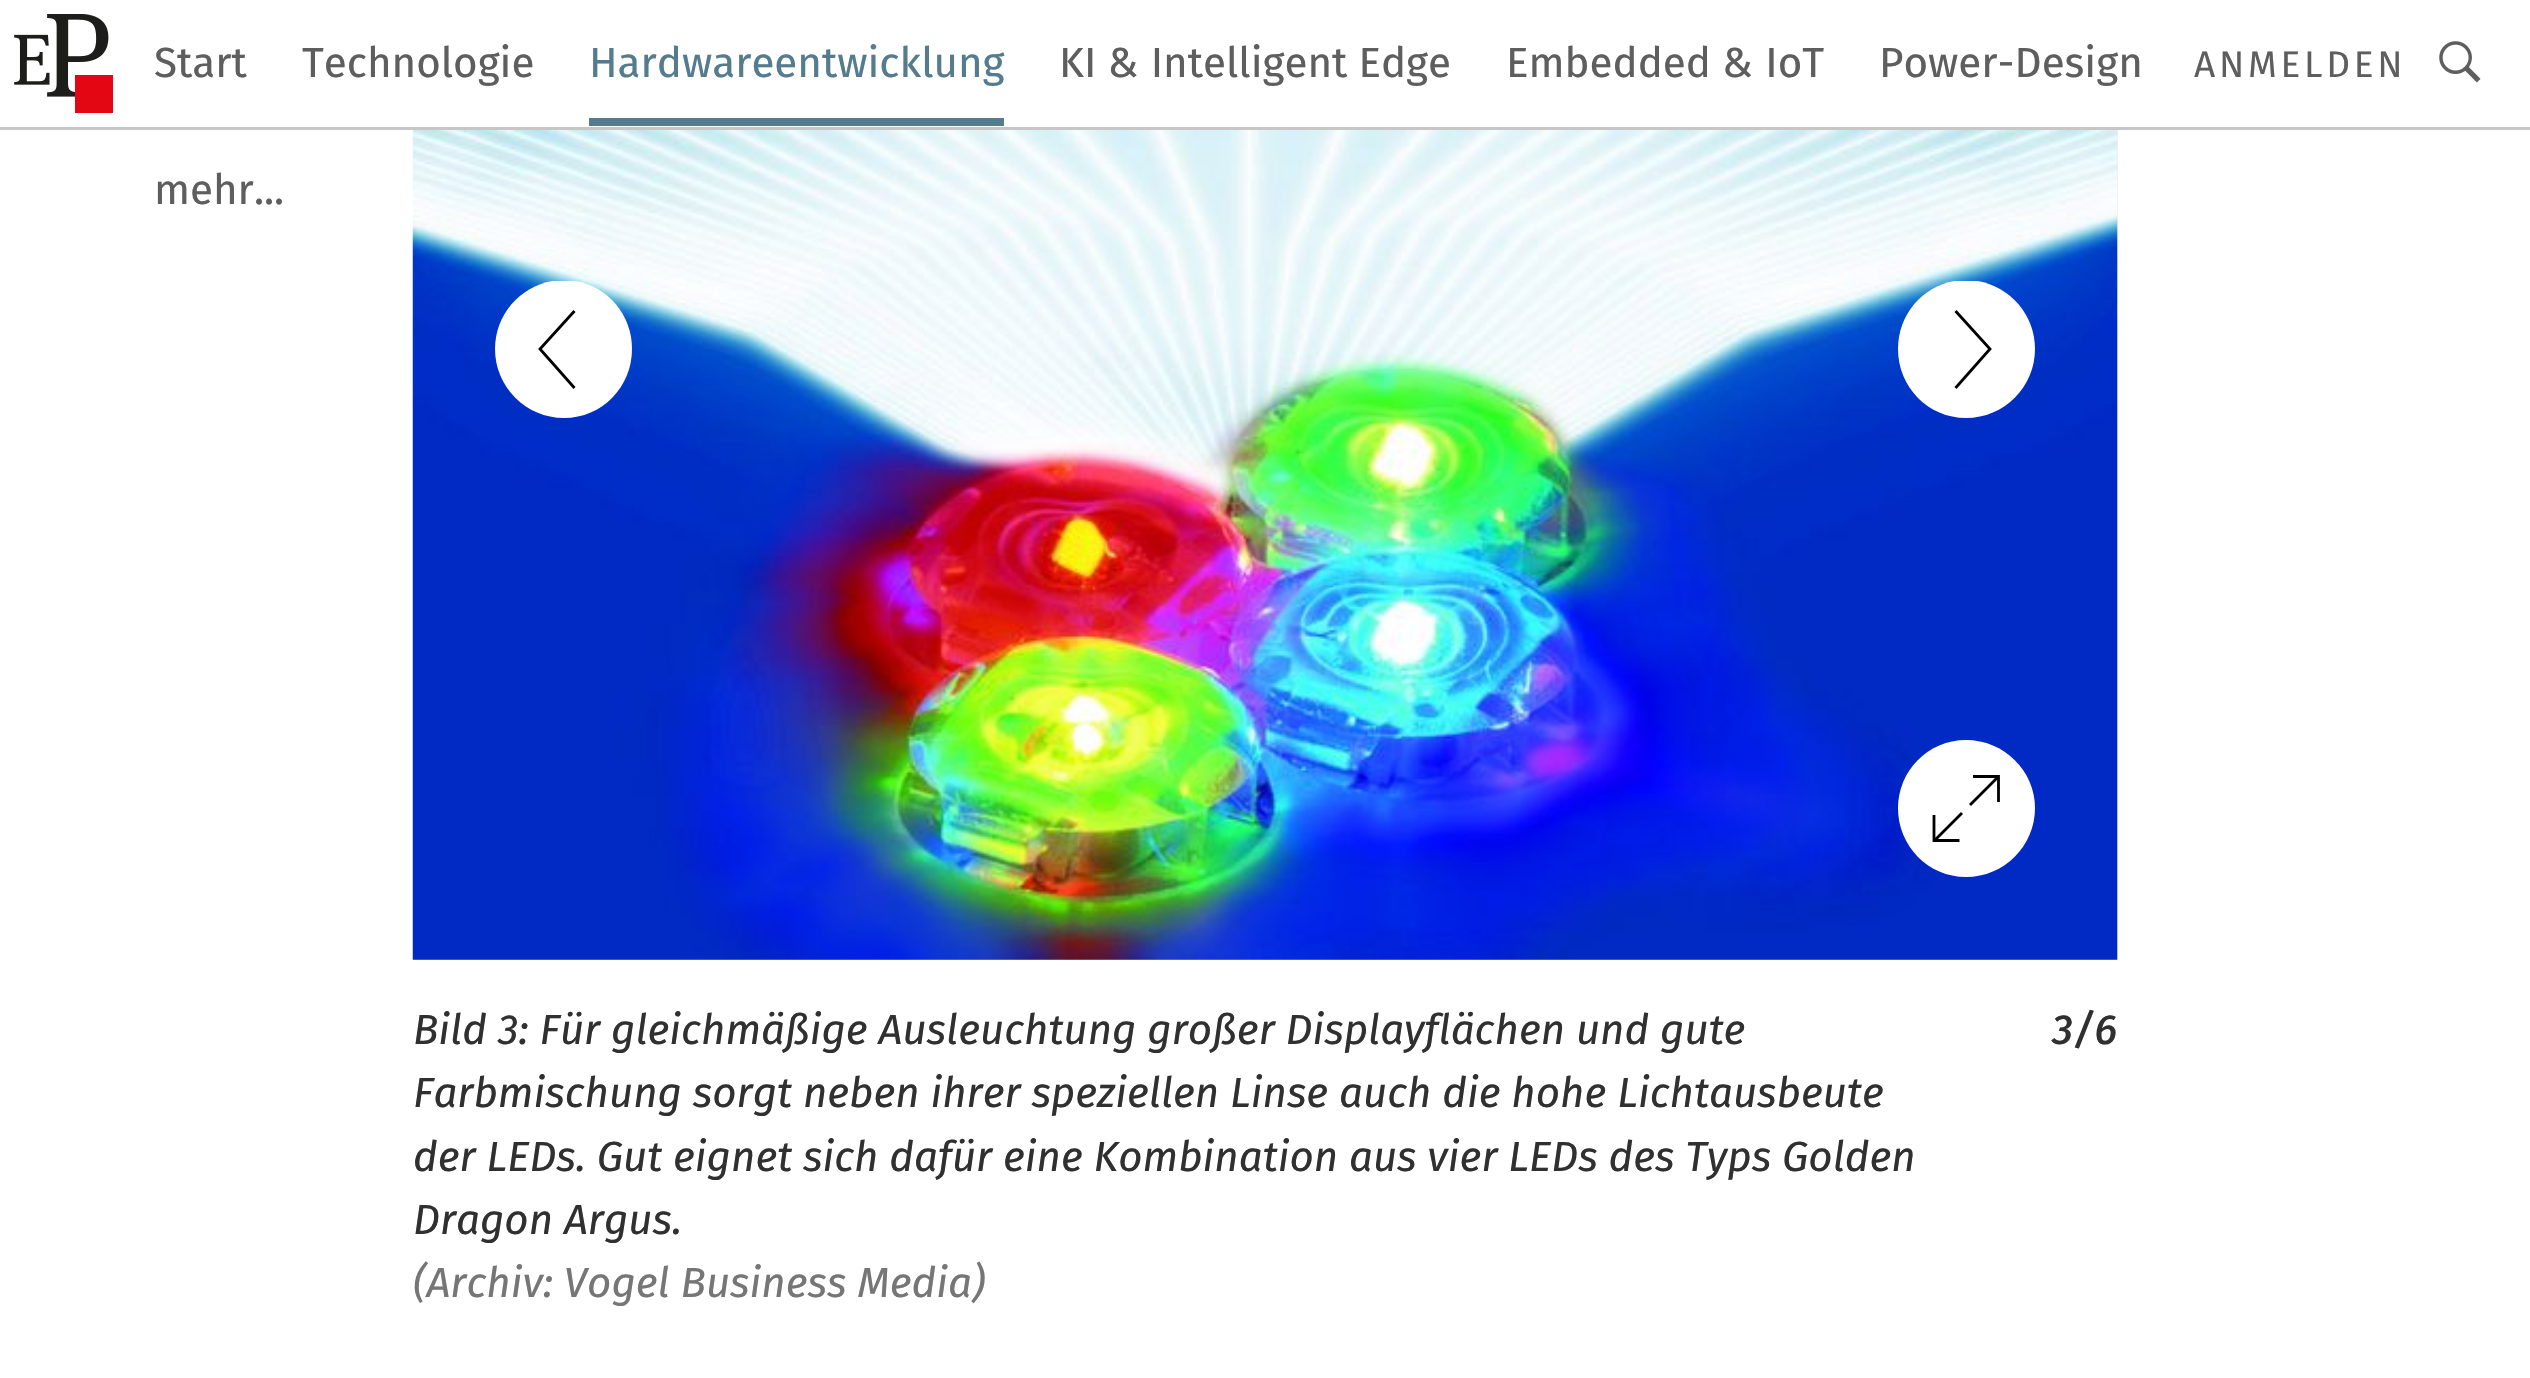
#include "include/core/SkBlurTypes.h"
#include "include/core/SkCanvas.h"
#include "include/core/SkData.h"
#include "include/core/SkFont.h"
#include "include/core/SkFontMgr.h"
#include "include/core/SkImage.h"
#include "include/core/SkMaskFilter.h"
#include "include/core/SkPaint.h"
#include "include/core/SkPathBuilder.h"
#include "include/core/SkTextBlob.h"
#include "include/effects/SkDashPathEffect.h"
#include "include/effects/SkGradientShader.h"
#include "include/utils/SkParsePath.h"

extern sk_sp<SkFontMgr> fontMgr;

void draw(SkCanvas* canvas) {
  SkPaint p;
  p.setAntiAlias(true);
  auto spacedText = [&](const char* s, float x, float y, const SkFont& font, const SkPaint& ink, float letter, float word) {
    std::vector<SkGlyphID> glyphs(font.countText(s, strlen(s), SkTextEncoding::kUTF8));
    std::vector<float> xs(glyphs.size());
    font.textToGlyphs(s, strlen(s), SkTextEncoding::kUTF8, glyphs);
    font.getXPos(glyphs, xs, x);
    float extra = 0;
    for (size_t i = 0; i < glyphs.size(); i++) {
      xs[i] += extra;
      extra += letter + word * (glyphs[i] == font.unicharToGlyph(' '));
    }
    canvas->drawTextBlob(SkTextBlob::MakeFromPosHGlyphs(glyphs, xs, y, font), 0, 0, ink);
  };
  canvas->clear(SK_ColorWHITE);
  p.setColor(SkColorSetRGB(198, 198, 198));
  canvas->drawRect(SkRect::MakeLTRB(0, 127, 2530, 130), p);
  canvas->drawImageRect(SkImages::DeferredFromEncodedData(SkData::MakeFromFileName("images/1.png")), SkRect::MakeLTRB(14, 14, 113, 113), SkSamplingOptions());
  p.setColor(SkColorSetRGB(84, 124, 142));
  canvas->drawRect(SkRect::MakeLTRB(589, 118, 1004, 126), p);
  canvas->drawImageRect(SkImages::DeferredFromEncodedData(SkData::MakeFromFileName("images/2.png")), SkRect::MakeLTRB(2439, 41, 2481, 83), SkSamplingOptions());
  p.setColor(SkColorSetRGB(239, 239, 239));
  canvas->drawRect(SkRect::MakeLTRB(413, 130, 2118, 960), p);
  canvas->drawImageRect(SkImages::DeferredFromEncodedData(SkData::MakeFromFileName("images/3.png")), SkRect::MakeLTRB(412, 130, 2118, 960), SkSamplingOptions());
  canvas->save();
  canvas->clipRect(SkRect::MakeLTRB(495, 281, 633, 418));
  p.setColor(SK_ColorWHITE);
  canvas->drawPath(SkPathBuilder().moveTo(564, 418).cubicTo(602, 418, 632, 387, 632, 349).cubicTo(632, 311, 602, 280, 564, 280).cubicTo(526, 280, 495, 311, 495, 349).cubicTo(495, 387, 526, 418, 564, 418).detach(), p);
  canvas->restore();
  p.setStyle(SkPaint::kStroke_Style);
  p.setStrokeWidth(2.8f);
  p.setColor(SK_ColorBLACK);
  canvas->drawPath(SkPathBuilder().moveTo(574.5f, 311).lineTo(540, 349).lineTo(574.5f, 388).detach(), p);
  canvas->save();
  canvas->clipRect(SkRect::MakeLTRB(1898, 281, 2035, 418));
  p.setStyle(SkPaint::kFill_Style);
  p.setColor(SK_ColorWHITE);
  canvas->drawPath(SkPathBuilder().moveTo(1966, 280).cubicTo(1928, 280, 1898, 311, 1898, 349).cubicTo(1898, 387, 1928, 418, 1966, 418).cubicTo(2004, 418, 2035, 387, 2035, 349).cubicTo(2035, 311, 2004, 280, 1966, 280).detach(), p);
  canvas->restore();
  p.setStyle(SkPaint::kStroke_Style);
  p.setColor(SK_ColorBLACK);
  canvas->drawPath(SkPathBuilder().moveTo(1955.5f, 388).lineTo(1990, 349).lineTo(1955.5f, 311).detach(), p);
  p.setStyle(SkPaint::kFill_Style);
  p.setColor(SK_ColorWHITE);
  canvas->drawPath(SkPathBuilder().moveTo(1966, 877).cubicTo(2004, 877, 2035, 846, 2035, 808).cubicTo(2035, 771, 2004, 740, 1966, 740).cubicTo(1928, 740, 1898, 771, 1898, 808).cubicTo(1898, 846, 1928, 877, 1966, 877).detach(), p);
  p.setStyle(SkPaint::kStroke_Style);
  p.setColor(SK_ColorBLACK);
  canvas->drawPath(SkPathBuilder().moveTo(1998.5f, 802).lineTo(1998.5f, 776.5f).lineTo(1973, 776.5f).detach(), p);
  canvas->drawPath(SkPathBuilder().moveTo(1934, 815).lineTo(1934, 840.5f).lineTo(1959.5f, 840.5f).detach(), p);
  canvas->drawPath(SkPathBuilder().moveTo(1997.5f, 777.5f).lineTo(1970, 805).detach(), p);
  canvas->drawPath(SkPathBuilder().moveTo(1962, 813).lineTo(1934.5f, 840.5f).detach(), p);
  SkFont font1(fontMgr->matchFamilyStyle("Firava", SkFontStyle::Normal()), 42.1f);
  font1.setSubpixel(true);
  p.setStyle(SkPaint::kFill_Style);
  p.setColor(SkColorSetRGB(94, 94, 94));
  canvas->drawString("Start", 154, 77, font1, p);
  canvas->drawString("Technologie", 302, 77, font1, p);
  p.setColor(SkColorSetRGB(84, 124, 142));
  canvas->drawString("Hardwareentwicklung", 589, 77, font1, p);
  p.setColor(SkColorSetRGB(94, 94, 94));
  canvas->drawString("KI & Intelligent Edge", 1059, 77, font1, p);
  canvas->drawString("Embedded & IoT", 1506, 77, font1, p);
  canvas->drawString("Power-Design", 1879, 77, font1, p);
  canvas->drawString("mehr...", 154, 204, font1, p);
  SkFont font2(fontMgr->matchFamilyStyle("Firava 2", SkFontStyle::Normal()), 37);
  font2.setSubpixel(true);
  spacedText("ANMELDEN", 2194, 77, font2, p, 3.75f, 0);
  SkFont font3(fontMgr->matchFamilyStyle("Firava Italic", SkFontStyle::Italic()), 42.1f);
  font3.setSubpixel(true);
  p.setColor(SkColorSetRGB(48, 48, 48));
  canvas->drawString("Bild 3: Für gleichmäßige Ausleuchtung großer Displayflächen und gute", 413, 1044, font3, p);
  canvas->drawString("Farbmischung sorgt neben ihrer speziellen Linse auch die hohe Lichtausbeute", 413, 1107, font3, p);
  canvas->drawString("der LEDs. Gut eignet sich dafür eine Kombination aus vier LEDs des Typs Golden", 413, 1171, font3, p);
  canvas->drawString("Dragon Argus.", 413, 1234, font3, p);
  p.setColor(SkColorSetRGB(118, 118, 118));
  canvas->drawString("(Archiv: Vogel Business Media)", 413, 1297, font3, p);
  SkFont font4(fontMgr->matchFamilyStyle("Firava Italic", SkFontStyle(500, SkFontStyle::kNormal_Width, SkFontStyle::kItalic_Slant)), 42.1f);
  font4.setSubpixel(true);
  p.setColor(SkColorSetRGB(48, 48, 48));
  canvas->drawString("3/6", 2052, 1044, font4, p);
}
